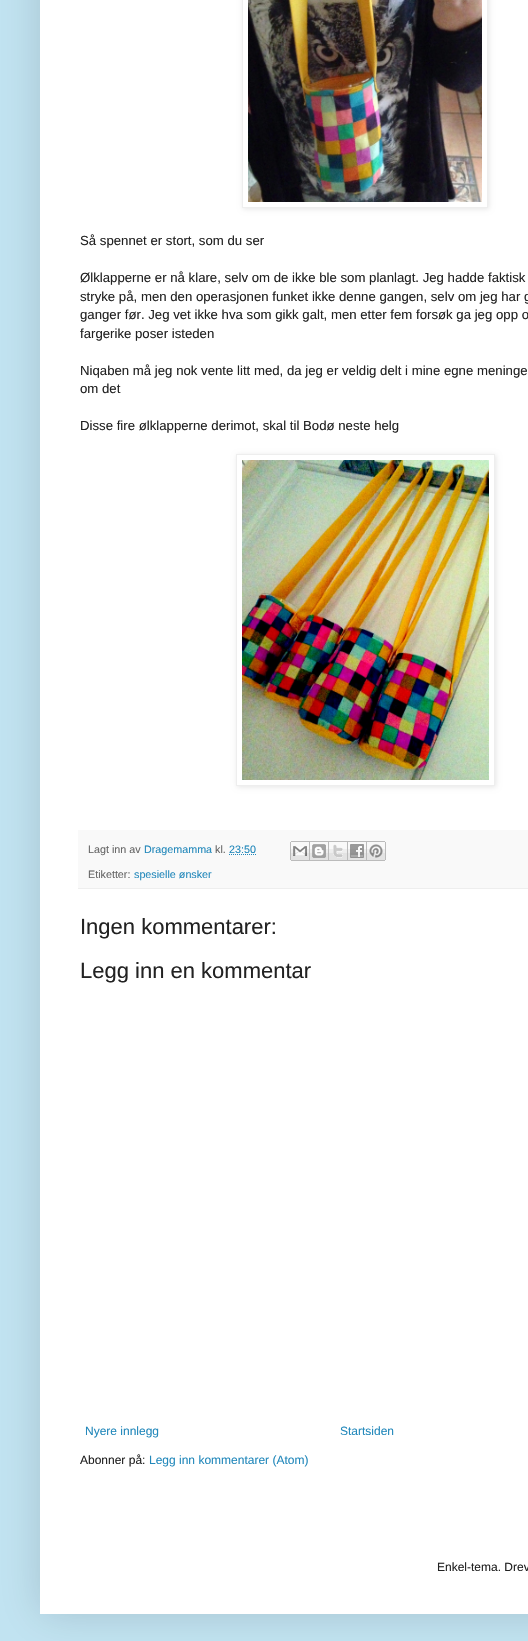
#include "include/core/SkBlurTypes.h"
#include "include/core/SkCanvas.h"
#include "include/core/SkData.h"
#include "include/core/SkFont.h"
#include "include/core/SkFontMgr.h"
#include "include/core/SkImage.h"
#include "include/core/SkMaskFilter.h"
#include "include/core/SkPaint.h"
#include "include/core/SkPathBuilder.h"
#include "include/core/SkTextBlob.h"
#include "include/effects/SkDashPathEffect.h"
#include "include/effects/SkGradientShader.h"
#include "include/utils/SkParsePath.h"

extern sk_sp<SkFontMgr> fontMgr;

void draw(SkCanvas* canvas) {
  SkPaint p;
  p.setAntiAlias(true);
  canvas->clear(SkColorSetRGB(194, 228, 242));
  p.setColor(SkColorSetARGB(38, 0, 0, 0));
  p.setMaskFilter(SkMaskFilter::MakeBlur(kNormal_SkBlurStyle, 20));
  canvas->drawRect(SkRect::MakeLTRB(40, -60, 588, 1614), p);
  p.setMaskFilter(nullptr);
  p.setColor(SK_ColorWHITE);
  canvas->drawRect(SkRect::MakeLTRB(40, 0, 528, 1614), p);
  canvas->save();
  canvas->clipPath(SkPathBuilder(SkPathFillType::kEvenOdd).moveTo(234, 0).lineTo(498, 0).lineTo(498, 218).lineTo(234, 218).close().moveTo(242, -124).lineTo(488, -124).lineTo(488, 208).lineTo(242, 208).close().detach(), true);
  p.setColor(SkColorSetARGB(26, 0, 0, 0));
  p.setMaskFilter(SkMaskFilter::MakeBlur(kNormal_SkBlurStyle, 2.5f));
  canvas->drawRect(SkRect::MakeLTRB(243, -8, 489, 209), p);
  p.setMaskFilter(nullptr);
  canvas->restore();
  p.setStyle(SkPaint::kStroke_Style);
  p.setStrokeWidth(1);
  p.setColor(SkColorSetRGB(238, 238, 238));
  canvas->drawRect(SkRect::MakeLTRB(242.5f, -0.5f, 487.5f, 207.5f), p);
  canvas->drawImageRect(SkImages::DeferredFromEncodedData(SkData::MakeFromFileName("images/1.png")), SkRect::MakeLTRB(248, 0, 482, 202), SkSamplingOptions());
  canvas->save();
  canvas->clipPath(SkPathBuilder(SkPathFillType::kEvenOdd).moveTo(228, 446).lineTo(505, 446).lineTo(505, 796).lineTo(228, 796).close().moveTo(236, 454).lineTo(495, 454).lineTo(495, 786).lineTo(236, 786).close().detach(), true);
  p.setStyle(SkPaint::kFill_Style);
  p.setColor(SkColorSetARGB(26, 0, 0, 0));
  p.setMaskFilter(SkMaskFilter::MakeBlur(kNormal_SkBlurStyle, 2.5f));
  canvas->drawRect(SkRect::MakeLTRB(237, 455, 496, 787), p);
  p.setMaskFilter(nullptr);
  canvas->restore();
  p.setStyle(SkPaint::kStroke_Style);
  p.setColor(SkColorSetRGB(238, 238, 238));
  canvas->drawRect(SkRect::MakeLTRB(236.5f, 454.5f, 494.5f, 785.5f), p);
  canvas->drawImageRect(SkImages::DeferredFromEncodedData(SkData::MakeFromFileName("images/2.png")), SkRect::MakeLTRB(242, 460, 489, 780), SkSamplingOptions());
  p.setStyle(SkPaint::kFill_Style);
  p.setColor(SkColorSetRGB(249, 249, 249));
  canvas->drawRect(SkRect::MakeLTRB(78, 830, 528, 888), p);
  p.setColor(SkColorSetRGB(238, 238, 238));
  canvas->drawRect(SkRect::MakeLTRB(78, 888, 528, 889), p);
  p.setStyle(SkPaint::kStroke_Style);
  p.setColor(SkColorSetRGB(34, 136, 187));
  p.setPathEffect(SkDashPathEffect::Make({{1, 1}}, 0));
  canvas->drawPath(SkPathBuilder().moveTo(229, 854.5f).lineTo(256, 854.5f).detach(), p);
  p.setPathEffect(nullptr);
  canvas->drawImageRect(SkImages::DeferredFromEncodedData(SkData::MakeFromFileName("images/3.png")), SkRect::MakeLTRB(290, 841, 310, 861), SkSamplingOptions());
  canvas->drawImageRect(SkImages::DeferredFromEncodedData(SkData::MakeFromFileName("images/4.png")), SkRect::MakeLTRB(310, 841, 329, 861), SkSamplingOptions());
  canvas->drawImageRect(SkImages::DeferredFromEncodedData(SkData::MakeFromFileName("images/5.png")), SkRect::MakeLTRB(329, 841, 348, 861), SkSamplingOptions());
  canvas->drawImageRect(SkImages::DeferredFromEncodedData(SkData::MakeFromFileName("images/6.png")), SkRect::MakeLTRB(348, 841, 367, 861), SkSamplingOptions());
  canvas->drawImageRect(SkImages::DeferredFromEncodedData(SkData::MakeFromFileName("images/7.png")), SkRect::MakeLTRB(367, 841, 386, 861), SkSamplingOptions());
  SkFont font1(fontMgr->matchFamilyStyle("Liberation Sans", SkFontStyle::Normal()), 13.2f);
  font1.setSubpixel(true);
  p.setStyle(SkPaint::kFill_Style);
  p.setColor(SkColorSetRGB(34, 34, 34));
  canvas->drawString("Så spennet er stort, som du ser", 80, 245, font1, p);
  canvas->drawString("Ølklapperne er nå klare, selv om de ikke ble som planlagt. Jeg hadde faktisk", 80, 282, font1, p);
  canvas->drawString("stryke på, men den operasjonen funket ikke denne gangen, selv om jeg har g", 80, 301, font1, p);
  canvas->drawString("ganger før. Jeg vet ikke hva som gikk galt, men etter fem forsøk ga jeg opp o", 80, 319, font1, p);
  canvas->drawString("fargerike poser isteden", 80, 338, font1, p);
  canvas->drawString("Niqaben må jeg nok vente litt med, da jeg er veldig delt i mine egne meninge", 80, 375, font1, p);
  canvas->drawString("om det", 80, 393, font1, p);
  canvas->drawString("Disse fire ølklapperne derimot, skal til Bodø neste helg", 80, 430, font1, p);
  SkFont font2(fontMgr->matchFamilyStyle("Liberation Sans", SkFontStyle::Normal()), 10.75f);
  font2.setSubpixel(true);
  p.setColor(SkColorSetRGB(102, 102, 102));
  canvas->drawString("Lagt inn av", 88, 853, font2, p);
  p.setColor(SkColorSetRGB(34, 136, 187));
  canvas->drawString("Dragemamma", 144, 853, font2, p);
  p.setColor(SkColorSetRGB(102, 102, 102));
  canvas->drawString("kl.", 215, 853, font2, p);
  p.setColor(SkColorSetRGB(34, 136, 187));
  canvas->drawString("23:50", 229, 853, font2, p);
  p.setColor(SkColorSetRGB(102, 102, 102));
  canvas->drawString("Etiketter:", 88, 878, font2, p);
  p.setColor(SkColorSetRGB(34, 136, 187));
  canvas->drawString("spesielle ønsker", 134, 878, font2, p);
  SkFont font3(fontMgr->matchFamilyStyle("Liberation Sans", SkFontStyle::Normal()), 22);
  font3.setSubpixel(true);
  p.setColor(SkColorSetRGB(34, 34, 34));
  canvas->drawString("Ingen kommentarer:", 80, 934, font3, p);
  canvas->drawString("Legg inn en kommentar", 80, 978, font3, p);
  SkFont font4(fontMgr->matchFamilyStyle("Liberation Sans", SkFontStyle::Normal()), 12);
  font4.setSubpixel(true);
  p.setColor(SkColorSetRGB(34, 136, 187));
  canvas->drawString("Nyere innlegg", 85, 1435, font4, p);
  canvas->drawString("Startsiden", 340, 1435, font4, p);
  p.setColor(SkColorSetRGB(34, 34, 34));
  canvas->drawString("Abonner på:", 80, 1464, font4, p);
  p.setColor(SkColorSetRGB(34, 136, 187));
  canvas->drawString("Legg inn kommentarer (Atom)", 149, 1464, font4, p);
  p.setColor(SkColorSetRGB(34, 34, 34));
  canvas->drawString("Enkel-tema. Drev", 437, 1571, font4, p);
}
